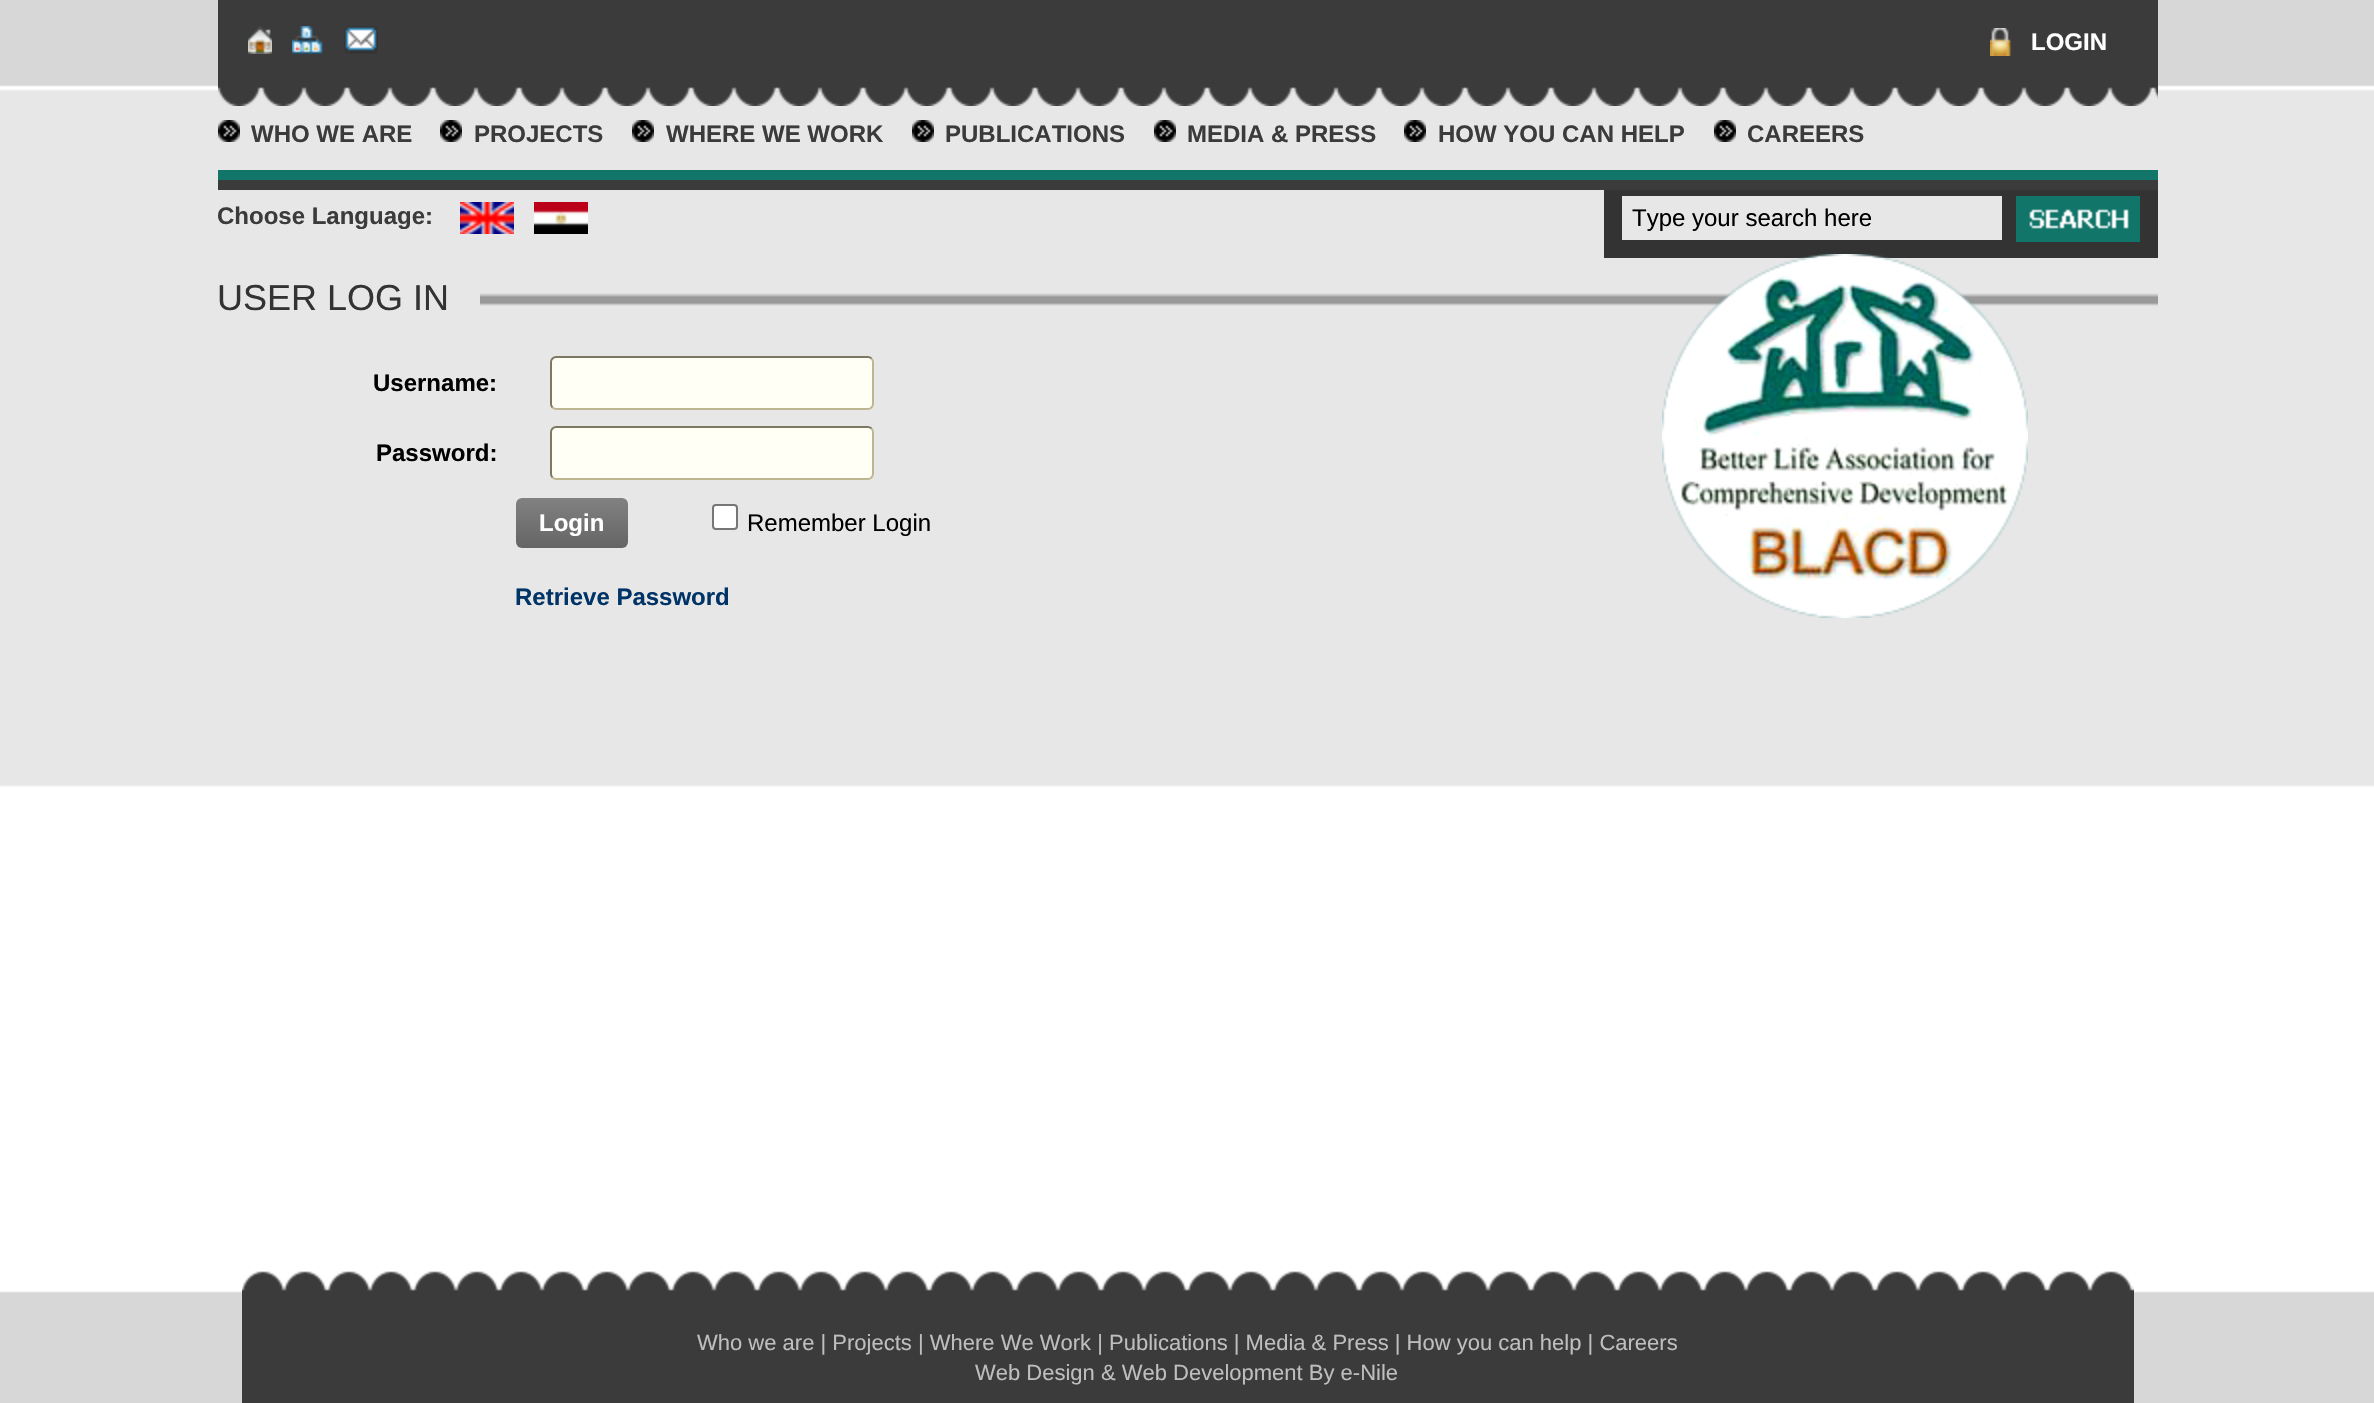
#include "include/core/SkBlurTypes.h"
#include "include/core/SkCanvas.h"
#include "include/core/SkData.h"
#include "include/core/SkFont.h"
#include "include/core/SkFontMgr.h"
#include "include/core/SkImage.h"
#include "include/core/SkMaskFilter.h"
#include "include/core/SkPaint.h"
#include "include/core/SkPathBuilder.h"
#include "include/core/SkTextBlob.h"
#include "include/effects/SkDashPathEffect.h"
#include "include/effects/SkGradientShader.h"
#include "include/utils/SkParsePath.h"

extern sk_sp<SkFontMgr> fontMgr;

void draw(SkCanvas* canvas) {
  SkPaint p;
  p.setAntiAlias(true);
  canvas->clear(SK_ColorWHITE);
  canvas->drawImageRect(SkImages::DeferredFromEncodedData(SkData::MakeFromFileName("images/1.png")), SkRect::MakeLTRB(0, 0, 2374, 787), SkSamplingOptions());
  canvas->drawImageRect(SkImages::DeferredFromEncodedData(SkData::MakeFromFileName("images/2.png")), SkRect::MakeLTRB(218, 0, 2158, 106), SkSamplingOptions());
  canvas->drawImageRect(SkImages::DeferredFromEncodedData(SkData::MakeFromFileName("images/3.png")), SkRect::MakeLTRB(248, 26, 272, 54), SkSamplingOptions());
  canvas->drawImageRect(SkImages::DeferredFromEncodedData(SkData::MakeFromFileName("images/4.png")), SkRect::MakeLTRB(292, 26, 323, 54), SkSamplingOptions());
  canvas->drawImageRect(SkImages::DeferredFromEncodedData(SkData::MakeFromFileName("images/5.png")), SkRect::MakeLTRB(344, 26, 378, 54), SkSamplingOptions());
  canvas->drawImageRect(SkImages::DeferredFromEncodedData(SkData::MakeFromFileName("images/6.png")), SkRect::MakeLTRB(1990, 28, 2012, 56), SkSamplingOptions());
  p.setColor(SkColorSetRGB(17, 117, 105));
  canvas->drawRect(SkRect::MakeLTRB(218, 170, 2158, 180), p);
  canvas->drawImageRect(SkImages::DeferredFromEncodedData(SkData::MakeFromFileName("images/7.png")), SkRect::MakeLTRB(218, 120, 240, 142), SkSamplingOptions());
  canvas->drawImageRect(SkImages::DeferredFromEncodedData(SkData::MakeFromFileName("images/7.png")), SkRect::MakeLTRB(440, 120, 462, 142), SkSamplingOptions());
  canvas->drawImageRect(SkImages::DeferredFromEncodedData(SkData::MakeFromFileName("images/7.png")), SkRect::MakeLTRB(632, 120, 654, 142), SkSamplingOptions());
  canvas->drawImageRect(SkImages::DeferredFromEncodedData(SkData::MakeFromFileName("images/7.png")), SkRect::MakeLTRB(912, 120, 934, 142), SkSamplingOptions());
  canvas->drawImageRect(SkImages::DeferredFromEncodedData(SkData::MakeFromFileName("images/7.png")), SkRect::MakeLTRB(1154, 120, 1176, 142), SkSamplingOptions());
  canvas->drawImageRect(SkImages::DeferredFromEncodedData(SkData::MakeFromFileName("images/7.png")), SkRect::MakeLTRB(1404, 120, 1426, 142), SkSamplingOptions());
  canvas->drawImageRect(SkImages::DeferredFromEncodedData(SkData::MakeFromFileName("images/7.png")), SkRect::MakeLTRB(1714, 120, 1736, 142), SkSamplingOptions());
  p.setColor(SkColorSetRGB(59, 59, 59));
  canvas->drawRect(SkRect::MakeLTRB(218, 180, 2158, 190), p);
  canvas->drawImageRect(SkImages::DeferredFromEncodedData(SkData::MakeFromFileName("images/8.png")), SkRect::MakeLTRB(460, 202, 514, 234), SkSamplingOptions());
  canvas->drawImageRect(SkImages::DeferredFromEncodedData(SkData::MakeFromFileName("images/9.png")), SkRect::MakeLTRB(534, 202, 588, 234), SkSamplingOptions());
  p.setColor(SkColorSetRGB(51, 51, 51));
  canvas->drawRect(SkRect::MakeLTRB(1604, 190, 2158, 258), p);
  p.setColor(SkColorSetRGB(231, 231, 231));
  canvas->drawRect(SkRect::MakeLTRB(1622, 196, 2002, 240), p);
  canvas->drawImageRect(SkImages::DeferredFromEncodedData(SkData::MakeFromFileName("images/10.png")), SkRect::MakeLTRB(2016, 196, 2140, 242), SkSamplingOptions());
  canvas->drawImageRect(SkImages::DeferredFromEncodedData(SkData::MakeFromFileName("images/11.png")), SkRect::MakeLTRB(480, 293, 2158, 306), SkSamplingOptions());
  p.setColor(SkColorSetRGB(255, 255, 245));
  canvas->drawRoundRect(SkRect::MakeLTRB(550, 356, 874, 410), 6, 6, p);
  p.setStyle(SkPaint::kStroke_Style);
  p.setStrokeWidth(2);
  p.setColor(SkColorSetRGB(188, 182, 145));
  canvas->drawPath(SkPathBuilder().moveTo(871.5f, 358.5f).cubicTo(872.5f, 359.5f, 873, 360.5f, 873, 362).lineTo(873, 404).cubicTo(873, 405.5f, 872.5f, 406.5f, 871.5f, 407.5f).cubicTo(870.5f, 408.5f, 869.5f, 409, 868, 409).lineTo(556, 409).cubicTo(554.5f, 409, 553.5f, 408.5f, 552.5f, 407.5f).detach(), p);
  p.setColor(SkColorSetRGB(125, 121, 97));
  canvas->drawPath(SkPathBuilder().moveTo(552.5f, 407.5f).cubicTo(551.5f, 406.5f, 551, 405.5f, 551, 404).lineTo(551, 362).cubicTo(551, 360.5f, 551.5f, 359.5f, 552.5f, 358.5f).cubicTo(553.5f, 357.5f, 554.5f, 357, 556, 357).lineTo(868, 357).cubicTo(869.5f, 357, 870.5f, 357.5f, 871.5f, 358.5f).detach(), p);
  p.setStyle(SkPaint::kFill_Style);
  p.setColor(SkColorSetRGB(255, 255, 245));
  canvas->drawRoundRect(SkRect::MakeLTRB(550, 426, 874, 480), 6, 6, p);
  p.setStyle(SkPaint::kStroke_Style);
  p.setColor(SkColorSetRGB(188, 182, 145));
  canvas->drawPath(SkPathBuilder().moveTo(871.5f, 428.5f).cubicTo(872.5f, 429.5f, 873, 430.5f, 873, 432).lineTo(873, 474).cubicTo(873, 475.5f, 872.5f, 476.5f, 871.5f, 477.5f).cubicTo(870.5f, 478.5f, 869.5f, 479, 868, 479).lineTo(556, 479).cubicTo(554.5f, 479, 553.5f, 478.5f, 552.5f, 477.5f).detach(), p);
  p.setColor(SkColorSetRGB(125, 121, 97));
  canvas->drawPath(SkPathBuilder().moveTo(552.5f, 477.5f).cubicTo(551.5f, 476.5f, 551, 475.5f, 551, 474).lineTo(551, 432).cubicTo(551, 430.5f, 551.5f, 429.5f, 552.5f, 428.5f).cubicTo(553.5f, 427.5f, 554.5f, 427, 556, 427).lineTo(868, 427).cubicTo(869.5f, 427, 870.5f, 427.5f, 871.5f, 428.5f).detach(), p);
  p.setStyle(SkPaint::kFill_Style);
  {
    const SkColor colors[] = {SkColorSetRGB(129, 129, 129), SkColorSetRGB(101, 101, 101)};
    const float stops[] = {0, 1};
    const SkPoint ends[] = {{516, 498}, {516, 548}};
    p.setShader(SkGradientShader::MakeLinear(ends, colors, stops, 2, SkTileMode::kClamp));
    p.setAlpha(255);
  }
  canvas->drawRoundRect(SkRect::MakeLTRB(516, 498, 628, 548), 6, 6, p);
  p.setShader(nullptr);
  p.setColor(SK_ColorWHITE);
  canvas->drawRoundRect(SkRect::MakeLTRB(713, 505, 737, 529), 3, 3, p);
  p.setStyle(SkPaint::kStroke_Style);
  p.setColor(SkColorSetRGB(118, 118, 118));
  canvas->drawRoundRect(SkRect::MakeLTRB(713, 505, 737, 529), 3, 3, p);
  canvas->drawImageRect(SkImages::DeferredFromEncodedData(SkData::MakeFromFileName("images/12.png")), SkRect::MakeLTRB(1662, 254, 2028, 618), SkSamplingOptions());
  canvas->drawImageRect(SkImages::DeferredFromEncodedData(SkData::MakeFromFileName("images/13.png")), SkRect::MakeLTRB(0, 1291, 2374, 1403), SkSamplingOptions());
  canvas->drawImageRect(SkImages::DeferredFromEncodedData(SkData::MakeFromFileName("images/14.png")), SkRect::MakeLTRB(242, 1271, 2134, 1403), SkSamplingOptions());
  SkFont font1(fontMgr->matchFamilyStyle("Liberation Sans", SkFontStyle::Bold()), 24);
  font1.setSubpixel(true);
  p.setStyle(SkPaint::kFill_Style);
  p.setColor(SK_ColorWHITE);
  canvas->drawString("LOGIN", 2031, 50, font1, p);
  p.setColor(SkColorSetRGB(59, 59, 59));
  canvas->drawString("WHO WE ARE", 251, 142, font1, p);
  canvas->drawString("PROJECTS", 474, 142, font1, p);
  canvas->drawString("WHERE WE WORK", 666, 142, font1, p);
  canvas->drawString("PUBLICATIONS", 945, 142, font1, p);
  canvas->drawString("MEDIA & PRESS", 1187, 142, font1, p);
  canvas->drawString("HOW YOU CAN HELP", 1438, 142, font1, p);
  canvas->drawString("CAREERS", 1747, 142, font1, p);
  canvas->drawString("Choose Language:", 217, 224, font1, p);
  SkFont font2(fontMgr->matchFamilyStyle("Liberation Sans", SkFontStyle::Normal()), 24);
  font2.setSubpixel(true);
  p.setColor(SK_ColorBLACK);
  canvas->drawString("Type your search here", 1632, 226, font2, p);
  SkFont font3(fontMgr->matchFamilyStyle("Liberation Sans", SkFontStyle::Normal()), 36);
  font3.setSubpixel(true);
  p.setColor(SkColorSetRGB(51, 51, 51));
  canvas->drawString("USER LOG IN", 217, 310, font3, p);
  p.setColor(SK_ColorBLACK);
  canvas->drawString("Username:", 373, 391, font1, p);
  canvas->drawString("Password:", 376, 461, font1, p);
  p.setColor(SK_ColorWHITE);
  canvas->drawString("Login", 539, 531, font1, p);
  p.setColor(SK_ColorBLACK);
  canvas->drawString("Remember Login", 747, 531, font2, p);
  p.setColor(SkColorSetRGB(0, 51, 102));
  canvas->drawString("Retrieve Password", 515, 605, font1, p);
  SkFont font4(fontMgr->matchFamilyStyle("Liberation Sans", SkFontStyle::Normal()), 22);
  font4.setSubpixel(true);
  p.setColor(SkColorSetRGB(190, 190, 190));
  canvas->drawString("Who we are | Projects | Where We Work | Publications | Media & Press | How you can help | Careers", 697, 1350, font4, p);
  canvas->drawString("Web Design & Web Development By e-Nile", 975, 1380, font4, p);
}
